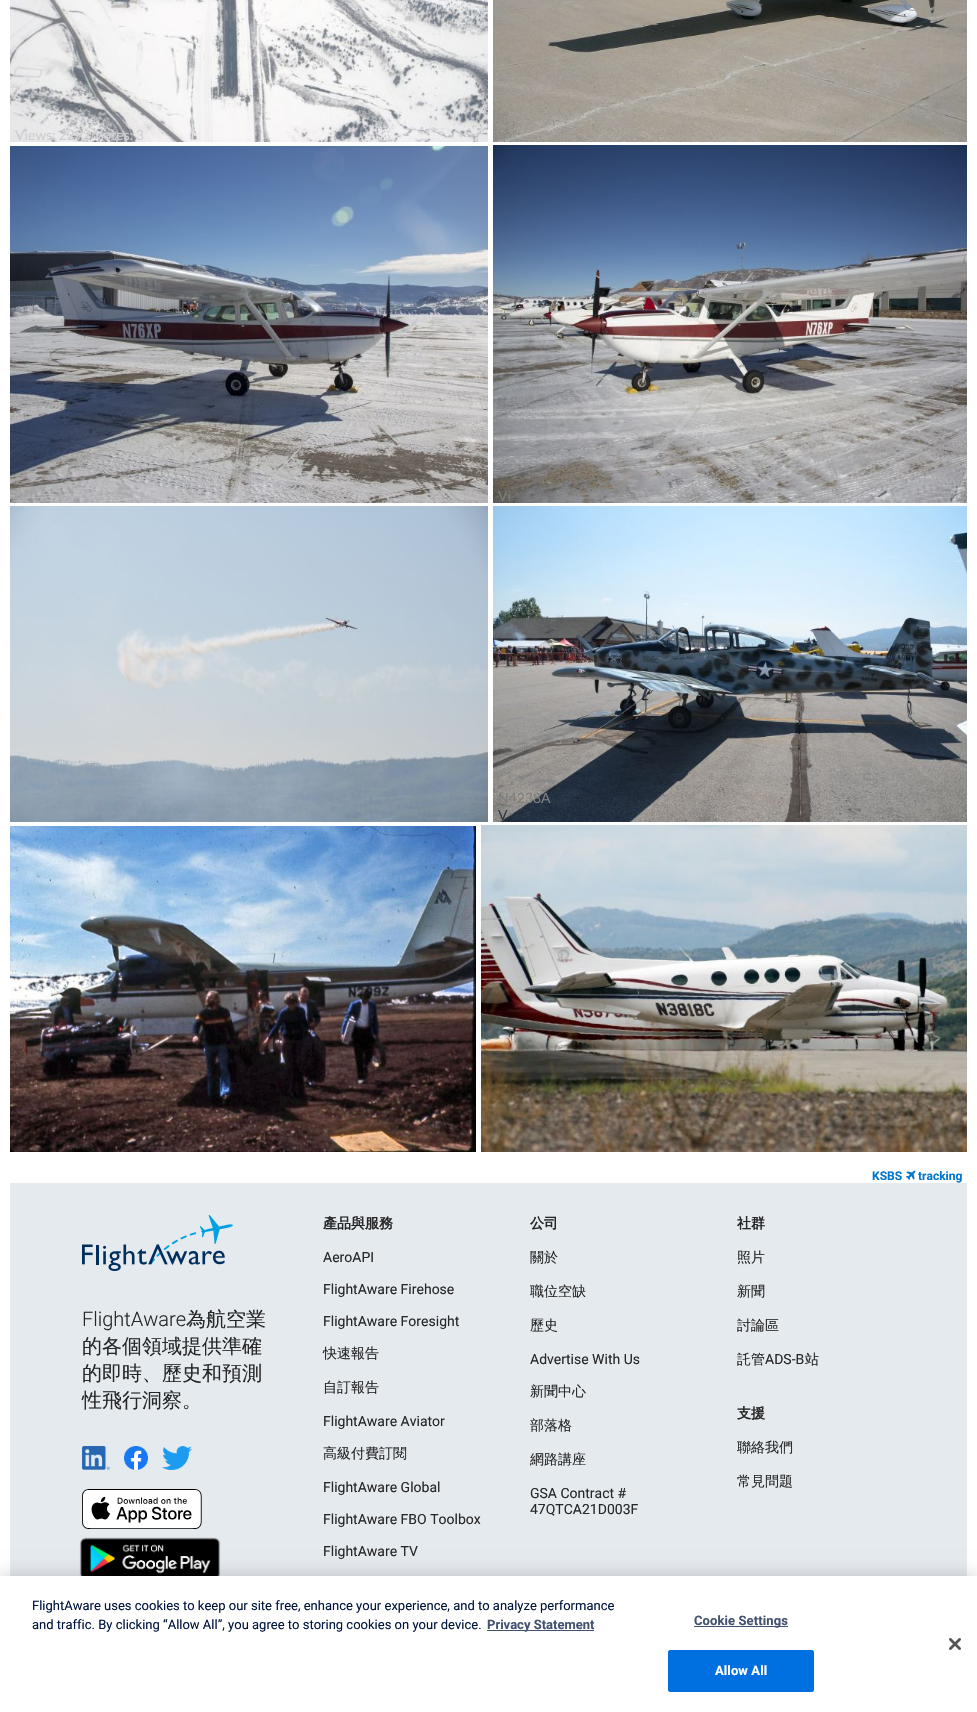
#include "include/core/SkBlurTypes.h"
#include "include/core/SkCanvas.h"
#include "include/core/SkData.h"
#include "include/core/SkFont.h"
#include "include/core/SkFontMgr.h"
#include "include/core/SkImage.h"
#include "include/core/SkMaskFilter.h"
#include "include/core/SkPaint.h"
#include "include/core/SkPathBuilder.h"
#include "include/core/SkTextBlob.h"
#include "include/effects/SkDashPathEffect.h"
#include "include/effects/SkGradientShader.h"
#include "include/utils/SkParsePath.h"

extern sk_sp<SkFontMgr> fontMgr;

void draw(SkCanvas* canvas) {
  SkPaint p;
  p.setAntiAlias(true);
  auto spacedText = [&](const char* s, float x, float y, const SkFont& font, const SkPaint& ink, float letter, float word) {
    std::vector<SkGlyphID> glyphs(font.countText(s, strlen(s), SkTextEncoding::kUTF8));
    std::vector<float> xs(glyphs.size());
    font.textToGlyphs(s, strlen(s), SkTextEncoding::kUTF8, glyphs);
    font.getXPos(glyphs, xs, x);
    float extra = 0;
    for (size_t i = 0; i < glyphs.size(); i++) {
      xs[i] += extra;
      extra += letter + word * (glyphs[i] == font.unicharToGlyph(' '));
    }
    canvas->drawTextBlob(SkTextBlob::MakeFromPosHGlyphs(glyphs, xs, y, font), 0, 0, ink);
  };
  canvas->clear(SK_ColorWHITE);
  canvas->drawImageRect(SkImages::DeferredFromEncodedData(SkData::MakeFromFileName("images/1.png")), SkRect::MakeLTRB(10, 0, 488, 142), SkSamplingOptions());
  canvas->drawImageRect(SkImages::DeferredFromEncodedData(SkData::MakeFromFileName("images/2.png")), SkRect::MakeLTRB(493, 0, 967, 142), SkSamplingOptions());
  canvas->drawImageRect(SkImages::DeferredFromEncodedData(SkData::MakeFromFileName("images/3.png")), SkRect::MakeLTRB(10, 146, 488, 503), SkSamplingOptions());
  canvas->drawImageRect(SkImages::DeferredFromEncodedData(SkData::MakeFromFileName("images/4.png")), SkRect::MakeLTRB(493, 145, 967, 503), SkSamplingOptions());
  canvas->drawImageRect(SkImages::DeferredFromEncodedData(SkData::MakeFromFileName("images/5.png")), SkRect::MakeLTRB(10, 506, 488, 822), SkSamplingOptions());
  canvas->drawImageRect(SkImages::DeferredFromEncodedData(SkData::MakeFromFileName("images/6.png")), SkRect::MakeLTRB(493, 506, 967, 822), SkSamplingOptions());
  canvas->drawImageRect(SkImages::DeferredFromEncodedData(SkData::MakeFromFileName("images/7.png")), SkRect::MakeLTRB(10, 826, 476, 1152), SkSamplingOptions());
  canvas->drawImageRect(SkImages::DeferredFromEncodedData(SkData::MakeFromFileName("images/8.png")), SkRect::MakeLTRB(481, 825, 967, 1152), SkSamplingOptions());
  canvas->drawImageRect(SkImages::DeferredFromEncodedData(SkData::MakeFromFileName("images/9.png")), SkRect::MakeLTRB(906, 1170, 916, 1180), SkSamplingOptions());
  p.setColor(SkColorSetRGB(229, 234, 239));
  canvas->drawRect(SkRect::MakeLTRB(10, 1183, 967, 1576), p);
  canvas->drawImageRect(SkImages::DeferredFromEncodedData(SkData::MakeFromFileName("images/10.png")), SkRect::MakeLTRB(82, 1215, 233, 1271), SkSamplingOptions());
  canvas->drawImageRect(SkImages::DeferredFromEncodedData(SkData::MakeFromFileName("images/11.png")), SkRect::MakeLTRB(82, 1446, 110, 1470), SkSamplingOptions());
  canvas->drawImageRect(SkImages::DeferredFromEncodedData(SkData::MakeFromFileName("images/12.png")), SkRect::MakeLTRB(124, 1446, 148, 1470), SkSamplingOptions());
  canvas->drawImageRect(SkImages::DeferredFromEncodedData(SkData::MakeFromFileName("images/13.png")), SkRect::MakeLTRB(162, 1446, 192, 1470), SkSamplingOptions());
  canvas->drawImageRect(SkImages::DeferredFromEncodedData(SkData::MakeFromFileName("images/14.png")), SkRect::MakeLTRB(82, 1489, 202, 1529), SkSamplingOptions());
  canvas->drawImageRect(SkImages::DeferredFromEncodedData(SkData::MakeFromFileName("images/15.png")), SkRect::MakeLTRB(79, 1537, 221, 1576), SkSamplingOptions());
  p.setColor(SkColorSetARGB(51, 0, 0, 0));
  p.setMaskFilter(SkMaskFilter::MakeBlur(kNormal_SkBlurStyle, 9));
  canvas->drawRect(SkRect::MakeLTRB(0, 1576, 977, 1712), p);
  p.setMaskFilter(nullptr);
  p.setColor(SK_ColorWHITE);
  canvas->drawRect(SkRect::MakeLTRB(0, 1576, 977, 1712), p);
  p.setColor(SkColorSetRGB(66, 82, 111));
  canvas->drawRect(SkRect::MakeLTRB(487, 1630, 594, 1631), p);
  canvas->drawRect(SkRect::MakeLTRB(694, 1626, 788, 1627), p);
  p.setColor(SkColorSetRGB(0, 112, 224));
  canvas->drawRoundRect(SkRect::MakeLTRB(668.5f, 1650.5f, 813.5f, 1691.5f), 1.5f, 1.5f, p);
  p.setStyle(SkPaint::kStroke_Style);
  p.setStrokeWidth(1);
  canvas->drawRoundRect(SkRect::MakeLTRB(668.5f, 1650.5f, 813.5f, 1691.5f), 1.5f, 1.5f, p);
  canvas->drawImageRect(SkImages::DeferredFromEncodedData(SkData::MakeFromFileName("images/16.png")), SkRect::MakeLTRB(949, 1638, 961, 1650), SkSamplingOptions());
  SkFont font1(fontMgr->matchFamilyStyle("Lato", SkFontStyle::Normal()), 14);
  font1.setSubpixel(true);
  p.setStyle(SkPaint::kFill_Style);
  p.setColor(SkColorSetRGB(207, 207, 210));
  canvas->drawString("Views: 2292 Votes: 3", 15, 140, font1, p);
  p.setColor(SkColorSetRGB(126, 125, 125));
  canvas->drawString("Vi", 498, 501, font1, p);
  canvas->drawString("N4238A", 498, 803, font1, p);
  p.setColor(SkColorSetRGB(46, 57, 72));
  canvas->drawString("V", 498, 820, font1, p);
  SkFont font2(fontMgr->matchFamilyStyle("Roboto", SkFontStyle::Bold()), 12);
  font2.setSubpixel(true);
  p.setColor(SkColorSetRGB(0, 119, 204));
  canvas->drawString("KSBS", 872, 1180, font2, p);
  canvas->drawString("tracking", 918, 1180, font2, p);
  SkFont font3(fontMgr->matchFamilyStyle("Roboto", SkFontStyle(300, SkFontStyle::kNormal_Width, SkFontStyle::kUpright_Slant)), 20);
  font3.setSubpixel(true);
  p.setColor(SkColorSetRGB(39, 39, 39));
  canvas->drawString("FlightAware", 82, 1326, font3, p);
  SkFont font4(fontMgr->matchFamilyStyle("WenQuanYi Zen Hei", SkFontStyle(500, SkFontStyle::kNormal_Width, SkFontStyle::kUpright_Slant)), 20);
  font4.setSubpixel(true);
  canvas->drawString("為航空業", 186, 1326, font4, p);
  canvas->drawString("的各個領域提供準確", 82, 1353, font4, p);
  canvas->drawString("的即時、歷史和預測", 82, 1380, font4, p);
  canvas->drawString("性飛行洞察。", 82, 1407, font4, p);
  SkFont font5(fontMgr->matchFamilyStyle("WenQuanYi Zen Hei", SkFontStyle::Bold()), 14);
  font5.setSubpixel(true);
  canvas->drawString("產品與服務", 323, 1228, font5, p);
  SkFont font6(fontMgr->matchFamilyStyle("Roboto", SkFontStyle::Normal()), 14);
  font6.setSubpixel(true);
  canvas->drawString("AeroAPI", 323, 1262, font6, p);
  canvas->drawString("FlightAware Firehose", 323, 1294, font6, p);
  canvas->drawString("FlightAware Foresight", 323, 1326, font6, p);
  SkFont font7(fontMgr->matchFamilyStyle("WenQuanYi Zen Hei", SkFontStyle(500, SkFontStyle::kNormal_Width, SkFontStyle::kUpright_Slant)), 14);
  font7.setSubpixel(true);
  canvas->drawString("快速報告", 323, 1358, font7, p);
  canvas->drawString("自訂報告", 323, 1392, font7, p);
  canvas->drawString("FlightAware Aviator", 323, 1426, font6, p);
  canvas->drawString("高級付費訂閱", 323, 1458, font7, p);
  canvas->drawString("FlightAware Global", 323, 1492, font6, p);
  canvas->drawString("FlightAware FBO Toolbox", 323, 1524, font6, p);
  canvas->drawString("FlightAware TV", 323, 1556, font6, p);
  canvas->drawString("公司", 530, 1228, font5, p);
  canvas->drawString("關於", 530, 1262, font7, p);
  canvas->drawString("職位空缺", 530, 1296, font7, p);
  canvas->drawString("歷史", 530, 1330, font7, p);
  canvas->drawString("Advertise With Us", 530, 1364, font6, p);
  canvas->drawString("新聞中心", 530, 1396, font7, p);
  canvas->drawString("部落格", 530, 1430, font7, p);
  canvas->drawString("網路講座", 530, 1464, font7, p);
  canvas->drawString("GSA Contract #", 530, 1498, font6, p);
  canvas->drawString("47QTCA21D003F", 530, 1514, font6, p);
  canvas->drawString("社群", 737, 1228, font5, p);
  canvas->drawString("照片", 737, 1262, font7, p);
  canvas->drawString("新聞", 737, 1296, font7, p);
  canvas->drawString("討論區", 737, 1330, font7, p);
  canvas->drawString("託管", 737, 1364, font7, p);
  canvas->drawString("ADS-B", 765, 1364, font6, p);
  canvas->drawString("站", 805, 1364, font7, p);
  canvas->drawString("支援", 737, 1418, font5, p);
  canvas->drawString("聯絡我們", 737, 1452, font7, p);
  canvas->drawString("常見問題", 737, 1486, font7, p);
  SkFont font8(fontMgr->matchFamilyStyle("Roboto", SkFontStyle::Normal()), 13);
  font8.setSubpixel(true);
  p.setColor(SkColorSetRGB(0, 21, 61));
  canvas->drawString("FlightAware uses cookies to keep our site free, enhance your experience, and to analyze performance", 32, 1610, font8, p);
  canvas->drawString("and traffic. By clicking “Allow All”, you agree to storing cookies on your device.", 32, 1629, font8, p);
  SkFont font9(fontMgr->matchFamilyStyle("Roboto", SkFontStyle::Bold()), 13);
  font9.setSubpixel(true);
  p.setColor(SkColorSetRGB(66, 82, 111));
  canvas->drawString("Privacy Statement", 487, 1629, font9, p);
  spacedText("Cookie Settings", 694, 1625, font9, p, 0.1f, 0);
  p.setColor(SK_ColorWHITE);
  spacedText("Allow All", 715, 1675, font9, p, 0.1f, 0);
}
